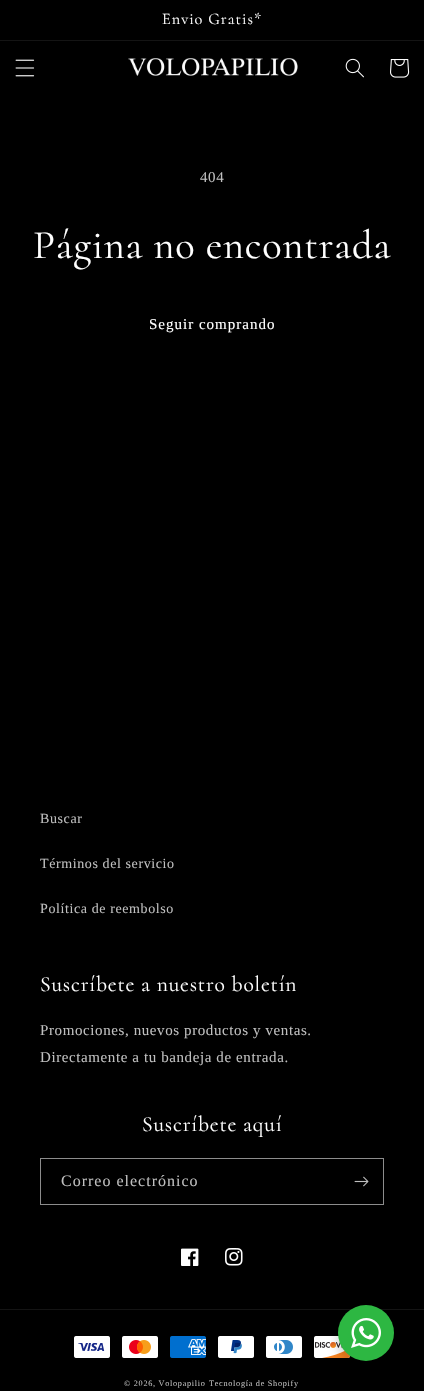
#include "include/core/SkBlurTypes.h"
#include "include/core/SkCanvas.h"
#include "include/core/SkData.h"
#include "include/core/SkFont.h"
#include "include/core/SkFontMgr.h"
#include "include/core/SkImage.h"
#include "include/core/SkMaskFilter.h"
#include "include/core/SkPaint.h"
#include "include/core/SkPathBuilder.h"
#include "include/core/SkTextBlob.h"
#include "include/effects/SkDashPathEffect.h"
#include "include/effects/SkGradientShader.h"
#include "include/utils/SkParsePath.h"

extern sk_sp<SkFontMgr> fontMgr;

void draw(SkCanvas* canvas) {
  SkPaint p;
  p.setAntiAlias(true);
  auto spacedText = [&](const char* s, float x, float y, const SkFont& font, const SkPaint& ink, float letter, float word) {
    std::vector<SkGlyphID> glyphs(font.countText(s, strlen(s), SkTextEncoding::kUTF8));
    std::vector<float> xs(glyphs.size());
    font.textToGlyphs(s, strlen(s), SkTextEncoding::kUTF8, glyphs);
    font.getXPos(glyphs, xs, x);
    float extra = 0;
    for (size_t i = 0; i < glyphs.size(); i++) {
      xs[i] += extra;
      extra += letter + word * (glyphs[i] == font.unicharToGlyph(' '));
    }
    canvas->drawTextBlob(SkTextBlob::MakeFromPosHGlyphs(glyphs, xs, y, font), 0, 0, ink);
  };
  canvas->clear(SK_ColorBLACK);
  p.setColor(SkColorSetRGB(20, 20, 20));
  canvas->drawRect(SkRect::MakeLTRB(0, 40, 424, 41), p);
  canvas->drawImageRect(SkImages::DeferredFromEncodedData(SkData::MakeFromFileName("images/1.png")), SkRect::MakeLTRB(15, 59, 35, 77), SkSamplingOptions());
  canvas->drawImageRect(SkImages::DeferredFromEncodedData(SkData::MakeFromFileName("images/2.png")), SkRect::MakeLTRB(128, 58, 298, 76), SkSamplingOptions());
  canvas->drawImageRect(SkImages::DeferredFromEncodedData(SkData::MakeFromFileName("images/3.png")), SkRect::MakeLTRB(345, 58, 364, 78), SkSamplingOptions());
  canvas->drawImageRect(SkImages::DeferredFromEncodedData(SkData::MakeFromFileName("images/4.png")), SkRect::MakeLTRB(390, 59, 410, 78), SkSamplingOptions());
  p.setStyle(SkPaint::kStroke_Style);
  p.setStrokeWidth(1);
  p.setColor(SkColorSetRGB(140, 140, 140));
  canvas->drawRect(SkRect::MakeLTRB(40.5f, 1158.5f, 383.5f, 1204.5f), p);
  canvas->drawImageRect(SkImages::DeferredFromEncodedData(SkData::MakeFromFileName("images/5.png")), SkRect::MakeLTRB(354, 1176, 369, 1187), SkSamplingOptions());
  canvas->drawImageRect(SkImages::DeferredFromEncodedData(SkData::MakeFromFileName("images/6.png")), SkRect::MakeLTRB(181, 1248, 199, 1266), SkSamplingOptions());
  canvas->drawImageRect(SkImages::DeferredFromEncodedData(SkData::MakeFromFileName("images/7.png")), SkRect::MakeLTRB(225, 1248, 243, 1266), SkSamplingOptions());
  p.setStyle(SkPaint::kFill_Style);
  p.setColor(SkColorSetRGB(20, 20, 20));
  canvas->drawRect(SkRect::MakeLTRB(0, 1309, 424, 1310), p);
  canvas->drawImageRect(SkImages::DeferredFromEncodedData(SkData::MakeFromFileName("images/8.png")), SkRect::MakeLTRB(74, 1336, 110, 1358), SkSamplingOptions());
  canvas->drawImageRect(SkImages::DeferredFromEncodedData(SkData::MakeFromFileName("images/9.png")), SkRect::MakeLTRB(122, 1336, 158, 1358), SkSamplingOptions());
  canvas->drawImageRect(SkImages::DeferredFromEncodedData(SkData::MakeFromFileName("images/10.png")), SkRect::MakeLTRB(170, 1336, 206, 1358), SkSamplingOptions());
  canvas->drawImageRect(SkImages::DeferredFromEncodedData(SkData::MakeFromFileName("images/11.png")), SkRect::MakeLTRB(218, 1336, 254, 1358), SkSamplingOptions());
  canvas->drawImageRect(SkImages::DeferredFromEncodedData(SkData::MakeFromFileName("images/12.png")), SkRect::MakeLTRB(266, 1336, 302, 1358), SkSamplingOptions());
  canvas->drawImageRect(SkImages::DeferredFromEncodedData(SkData::MakeFromFileName("images/13.png")), SkRect::MakeLTRB(314, 1336, 351, 1358), SkSamplingOptions());
  p.setColor(SkColorSetARGB(36, 0, 0, 0));
  p.setMaskFilter(SkMaskFilter::MakeBlur(kNormal_SkBlurStyle, 4));
  canvas->drawRoundRect(SkRect::MakeLTRB(336, 1309, 396, 1369), 30, 30, p);
  p.setMaskFilter(nullptr);
  p.setColor(SkColorSetRGB(45, 183, 66));
  canvas->drawCircle(366, 1333, 28, p);
  canvas->drawImageRect(SkImages::DeferredFromEncodedData(SkData::MakeFromFileName("images/14.png")), SkRect::MakeLTRB(351, 1318, 381, 1348), SkSamplingOptions());
  SkFont font1(fontMgr->matchFamilyStyle("Cormorant", SkFontStyle::Normal()), 16.25f);
  font1.setSubpixel(true);
  p.setColor(SK_ColorWHITE);
  spacedText("Envio Gratis*", 162, 24, font1, p, 1, 0);
  SkFont font2(fontMgr->matchFamilyStyle("Liberation Serif", SkFontStyle::Normal()), 15);
  font2.setSubpixel(true);
  p.setColor(SkColorSetRGB(191, 191, 191));
  spacedText("404", 200, 182, font2, p, 0.6f, 0);
  SkFont font3(fontMgr->matchFamilyStyle("Cormorant", SkFontStyle::Normal()), 40.5f);
  font3.setSubpixel(true);
  p.setColor(SK_ColorWHITE);
  spacedText("Página no encontrada", 33, 258, font3, p, 0.8f, 0);
  spacedText("Seguir comprando", 149, 329, font2, p, 1, 0);
  SkFont font4(fontMgr->matchFamilyStyle("Liberation Serif", SkFontStyle::Normal()), 14);
  font4.setSubpixel(true);
  p.setColor(SkColorSetRGB(191, 191, 191));
  spacedText("Buscar", 40, 823, font4, p, 0.6f, 0);
  spacedText("Términos del servicio", 40, 868, font4, p, 0.6f, 0);
  spacedText("Política de reembolso", 40, 913, font4, p, 0.6f, 0);
  SkFont font5(fontMgr->matchFamilyStyle("Cormorant", SkFontStyle::Normal()), 21.6f);
  font5.setSubpixel(true);
  p.setColor(SK_ColorWHITE);
  spacedText("Suscríbete a nuestro boletín", 40, 991, font5, p, 0.8f, 0);
  p.setColor(SkColorSetRGB(191, 191, 191));
  spacedText("Promociones, nuevos productos y ventas.", 40, 1035, font2, p, 0.6f, 0);
  spacedText("Directamente a tu bandeja de entrada.", 40, 1062, font2, p, 0.6f, 0);
  p.setColor(SK_ColorWHITE);
  spacedText("Suscríbete aquí", 142, 1131, font5, p, 0.8f, 0);
  SkFont font6(fontMgr->matchFamilyStyle("Liberation Serif", SkFontStyle::Normal()), 16);
  font6.setSubpixel(true);
  p.setColor(SkColorSetRGB(191, 191, 191));
  spacedText("Correo electrónico", 61, 1186, font6, p, 1, 0);
  SkFont font7(fontMgr->matchFamilyStyle("Liberation Serif", SkFontStyle::Normal()), 8.25f);
  font7.setSubpixel(true);
  spacedText("© 2026, Volopapilio", 124, 1386, font7, p, 0.7f, 0);
  spacedText("Tecnología de Shopify", 209, 1386, font7, p, 0.7f, 0);
}
